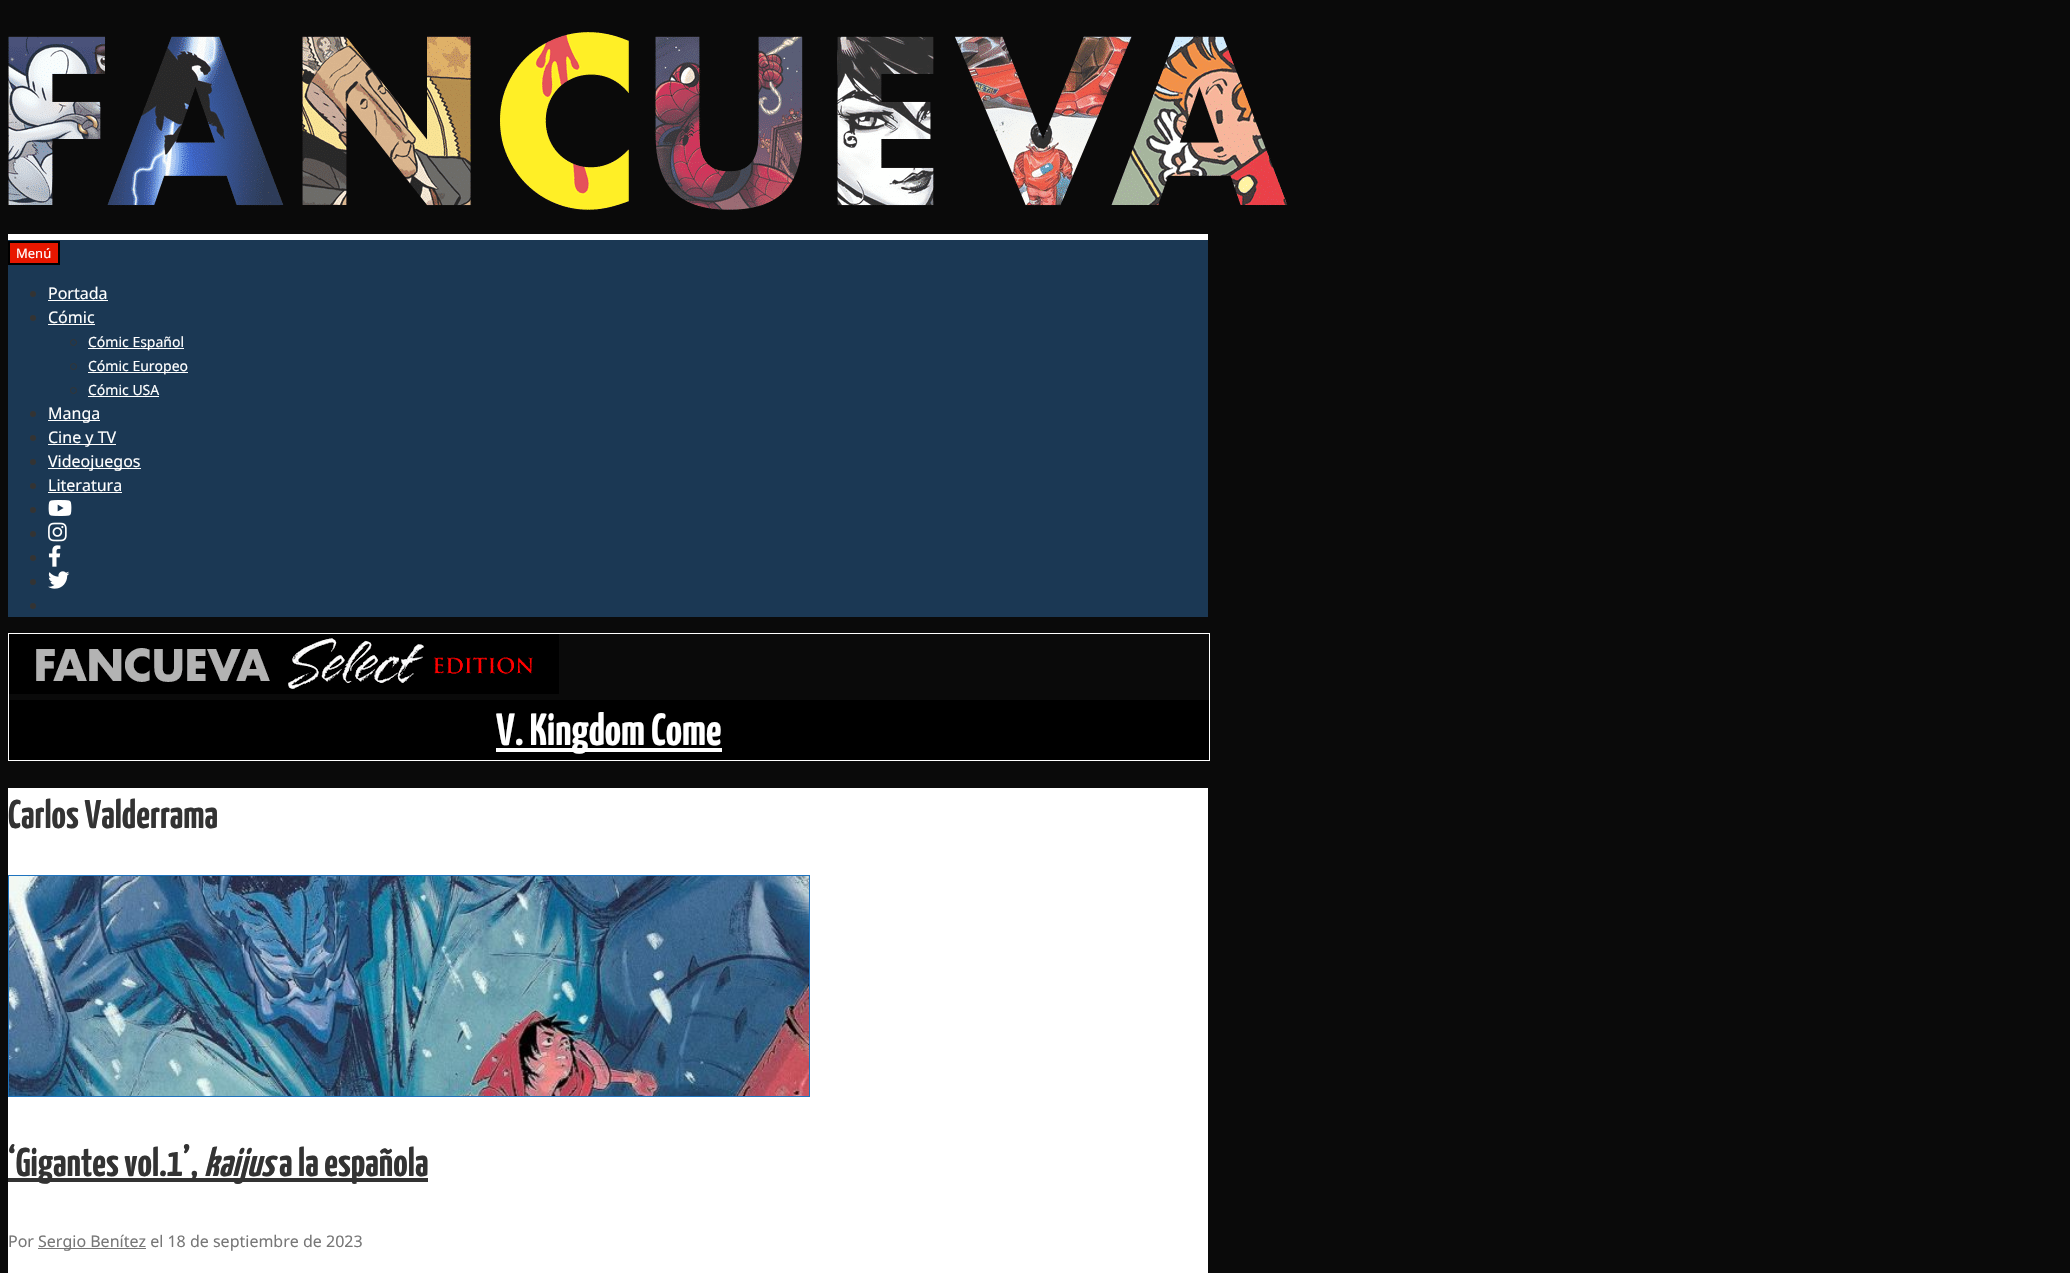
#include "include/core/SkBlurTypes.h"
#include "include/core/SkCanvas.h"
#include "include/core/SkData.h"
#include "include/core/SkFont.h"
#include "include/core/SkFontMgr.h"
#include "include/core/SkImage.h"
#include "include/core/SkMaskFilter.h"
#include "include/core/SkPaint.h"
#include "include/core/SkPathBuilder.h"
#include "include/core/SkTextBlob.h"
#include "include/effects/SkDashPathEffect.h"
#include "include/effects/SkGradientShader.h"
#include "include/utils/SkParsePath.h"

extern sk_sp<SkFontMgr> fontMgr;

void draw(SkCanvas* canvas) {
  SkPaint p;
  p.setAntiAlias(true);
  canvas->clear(SkColorSetRGB(10, 10, 10));
  p.setColor(SK_ColorWHITE);
  canvas->drawRect(SkRect::MakeLTRB(8, 234, 1208, 240), p);
  canvas->drawImageRect(SkImages::DeferredFromEncodedData(SkData::MakeFromFileName("images/1.png")), SkRect::MakeLTRB(8, 8, 1288, 234), SkSamplingOptions());
  p.setColor(SkColorSetRGB(27, 56, 84));
  canvas->drawRect(SkRect::MakeLTRB(8, 240, 1208, 617), p);
  p.setColor(SkColorSetRGB(232, 23, 0));
  canvas->drawRect(SkRect::MakeLTRB(9, 242, 59, 264), p);
  p.setStyle(SkPaint::kStroke_Style);
  p.setStrokeWidth(2);
  p.setColor(SK_ColorBLACK);
  canvas->drawRect(SkRect::MakeLTRB(9, 242, 59, 264), p);
  p.setStyle(SkPaint::kFill_Style);
  p.setColor(SkColorSetRGB(51, 51, 51));
  canvas->drawCircle(33, 294, 3, p);
  p.setColor(SK_ColorWHITE);
  canvas->drawRect(SkRect::MakeLTRB(48, 300, 108, 301), p);
  p.setColor(SkColorSetRGB(51, 51, 51));
  canvas->drawCircle(33, 318, 3, p);
  p.setColor(SK_ColorWHITE);
  canvas->drawRect(SkRect::MakeLTRB(48, 324, 95, 325), p);
  p.setStyle(SkPaint::kStroke_Style);
  p.setStrokeWidth(1);
  p.setColor(SkColorSetRGB(51, 51, 51));
  canvas->drawCircle(73.5f, 342.5f, 3, p);
  p.setStyle(SkPaint::kFill_Style);
  p.setColor(SK_ColorWHITE);
  canvas->drawRect(SkRect::MakeLTRB(88, 348, 184, 349), p);
  p.setStyle(SkPaint::kStroke_Style);
  p.setColor(SkColorSetRGB(51, 51, 51));
  canvas->drawCircle(73.5f, 366.5f, 3, p);
  p.setStyle(SkPaint::kFill_Style);
  p.setColor(SK_ColorWHITE);
  canvas->drawRect(SkRect::MakeLTRB(88, 372, 188, 373), p);
  p.setStyle(SkPaint::kStroke_Style);
  p.setColor(SkColorSetRGB(51, 51, 51));
  canvas->drawCircle(73.5f, 390.5f, 3, p);
  p.setStyle(SkPaint::kFill_Style);
  p.setColor(SK_ColorWHITE);
  canvas->drawRect(SkRect::MakeLTRB(88, 396, 159, 397), p);
  p.setColor(SkColorSetRGB(51, 51, 51));
  canvas->drawCircle(33, 414, 3, p);
  p.setColor(SK_ColorWHITE);
  canvas->drawRect(SkRect::MakeLTRB(48, 420, 100, 421), p);
  p.setColor(SkColorSetRGB(51, 51, 51));
  canvas->drawCircle(33, 438, 3, p);
  p.setColor(SK_ColorWHITE);
  canvas->drawRect(SkRect::MakeLTRB(48, 444, 116, 445), p);
  p.setColor(SkColorSetRGB(51, 51, 51));
  canvas->drawCircle(33, 462, 3, p);
  p.setColor(SK_ColorWHITE);
  canvas->drawRect(SkRect::MakeLTRB(48, 468, 141, 469), p);
  p.setColor(SkColorSetRGB(51, 51, 51));
  canvas->drawCircle(33, 486, 3, p);
  p.setColor(SK_ColorWHITE);
  canvas->drawRect(SkRect::MakeLTRB(48, 492, 122, 493), p);
  p.setColor(SkColorSetRGB(51, 51, 51));
  canvas->drawCircle(33, 510, 3, p);
  canvas->drawImageRect(SkImages::DeferredFromEncodedData(SkData::MakeFromFileName("images/2.png")), SkRect::MakeLTRB(48, 500, 72, 516), SkSamplingOptions());
  canvas->drawCircle(33, 534, 3, p);
  canvas->drawImageRect(SkImages::DeferredFromEncodedData(SkData::MakeFromFileName("images/3.png")), SkRect::MakeLTRB(48, 522, 67, 542), SkSamplingOptions());
  canvas->drawCircle(33, 558, 3, p);
  canvas->drawImageRect(SkImages::DeferredFromEncodedData(SkData::MakeFromFileName("images/4.png")), SkRect::MakeLTRB(48, 545, 61, 567), SkSamplingOptions());
  canvas->drawCircle(33, 582, 3, p);
  canvas->drawImageRect(SkImages::DeferredFromEncodedData(SkData::MakeFromFileName("images/5.png")), SkRect::MakeLTRB(48, 571, 70, 589), SkSamplingOptions());
  canvas->drawCircle(33, 606, 3, p);
  p.setStyle(SkPaint::kStroke_Style);
  p.setColor(SK_ColorWHITE);
  canvas->drawRect(SkRect::MakeLTRB(8.5f, 633.5f, 1209.5f, 760.5f), p);
  canvas->drawImageRect(SkImages::DeferredFromEncodedData(SkData::MakeFromFileName("images/6.png")), SkRect::MakeLTRB(9, 634, 559, 694), SkSamplingOptions());
  p.setStyle(SkPaint::kFill_Style);
  p.setColor(SK_ColorBLACK);
  canvas->drawRect(SkRect::MakeLTRB(9, 700, 1209, 760), p);
  p.setColor(SK_ColorWHITE);
  canvas->drawRect(SkRect::MakeLTRB(496, 748, 722, 752), p);
  canvas->drawRect(SkRect::MakeLTRB(8, 788, 1208, 1273), p);
  p.setStyle(SkPaint::kStroke_Style);
  p.setColor(SkColorSetRGB(30, 115, 190));
  canvas->drawRect(SkRect::MakeLTRB(8.5f, 875.5f, 809.5f, 1096.5f), p);
  canvas->drawImageRect(SkImages::DeferredFromEncodedData(SkData::MakeFromFileName("images/7.png")), SkRect::MakeLTRB(9, 876, 809, 1096), SkSamplingOptions());
  p.setStyle(SkPaint::kFill_Style);
  p.setColor(SkColorSetRGB(51, 51, 51));
  canvas->drawRect(SkRect::MakeLTRB(8, 1178, 273, 1182), p);
  canvas->drawRect(SkRect::MakeLTRB(273, 1178, 428, 1182), p);
  p.setColor(SkColorSetRGB(119, 119, 119));
  canvas->drawRect(SkRect::MakeLTRB(38, 1248, 146, 1249), p);
  SkFont font1(fontMgr->matchFamilyStyle("Noto Sans", SkFontStyle::Normal()), 13);
  font1.setSubpixel(true);
  p.setColor(SK_ColorWHITE);
  canvas->drawString("Menú", 16, 258, font1, p);
  SkFont font2(fontMgr->matchFamilyStyle("Noto Sans", SkFontStyle::Normal()), 16);
  font2.setSubpixel(true);
  canvas->drawString("Portada", 48, 299, font2, p);
  canvas->drawString("Cómic", 48, 323, font2, p);
  SkFont font3(fontMgr->matchFamilyStyle("Noto Sans", SkFontStyle::Normal()), 14);
  font3.setSubpixel(true);
  canvas->drawString("Cómic Español", 88, 347, font3, p);
  canvas->drawString("Cómic Europeo", 88, 371, font3, p);
  canvas->drawString("Cómic USA", 88, 395, font3, p);
  canvas->drawString("Manga", 48, 419, font2, p);
  canvas->drawString("Cine y TV", 48, 443, font2, p);
  canvas->drawString("Videojuegos", 48, 467, font2, p);
  canvas->drawString("Literatura", 48, 491, font2, p);
  SkFont font4(fontMgr->matchFamilyStyle("Yanone Kaffeesatz", SkFontStyle::Bold()), 45);
  font4.setSubpixel(true);
  canvas->drawString("V. Kingdom Come", 496, 745, font4, p);
  SkFont font5(fontMgr->matchFamilyStyle("Yanone Kaffeesatz", SkFontStyle::Bold()), 40);
  font5.setSubpixel(true);
  p.setColor(SkColorSetRGB(51, 51, 51));
  canvas->drawString("Carlos Valderrama", 8, 828, font5, p);
  canvas->drawString("‘Gigantes vol.1’,", 8, 1176, font5, p);
  SkFont font6(fontMgr->matchFamilyStyle("Yanone Kaffeesatz", SkFontStyle::BoldItalic()), 40);
  font6.setSubpixel(true);
  canvas->drawString("kaijus", 204, 1176, font6, p);
  canvas->drawString("a la española", 279, 1176, font5, p);
  p.setColor(SkColorSetRGB(119, 119, 119));
  canvas->drawString("Por", 8, 1247, font2, p);
  canvas->drawString("Sergio Benítez el 18 de septiembre de 2023", 38, 1247, font2, p);
}
